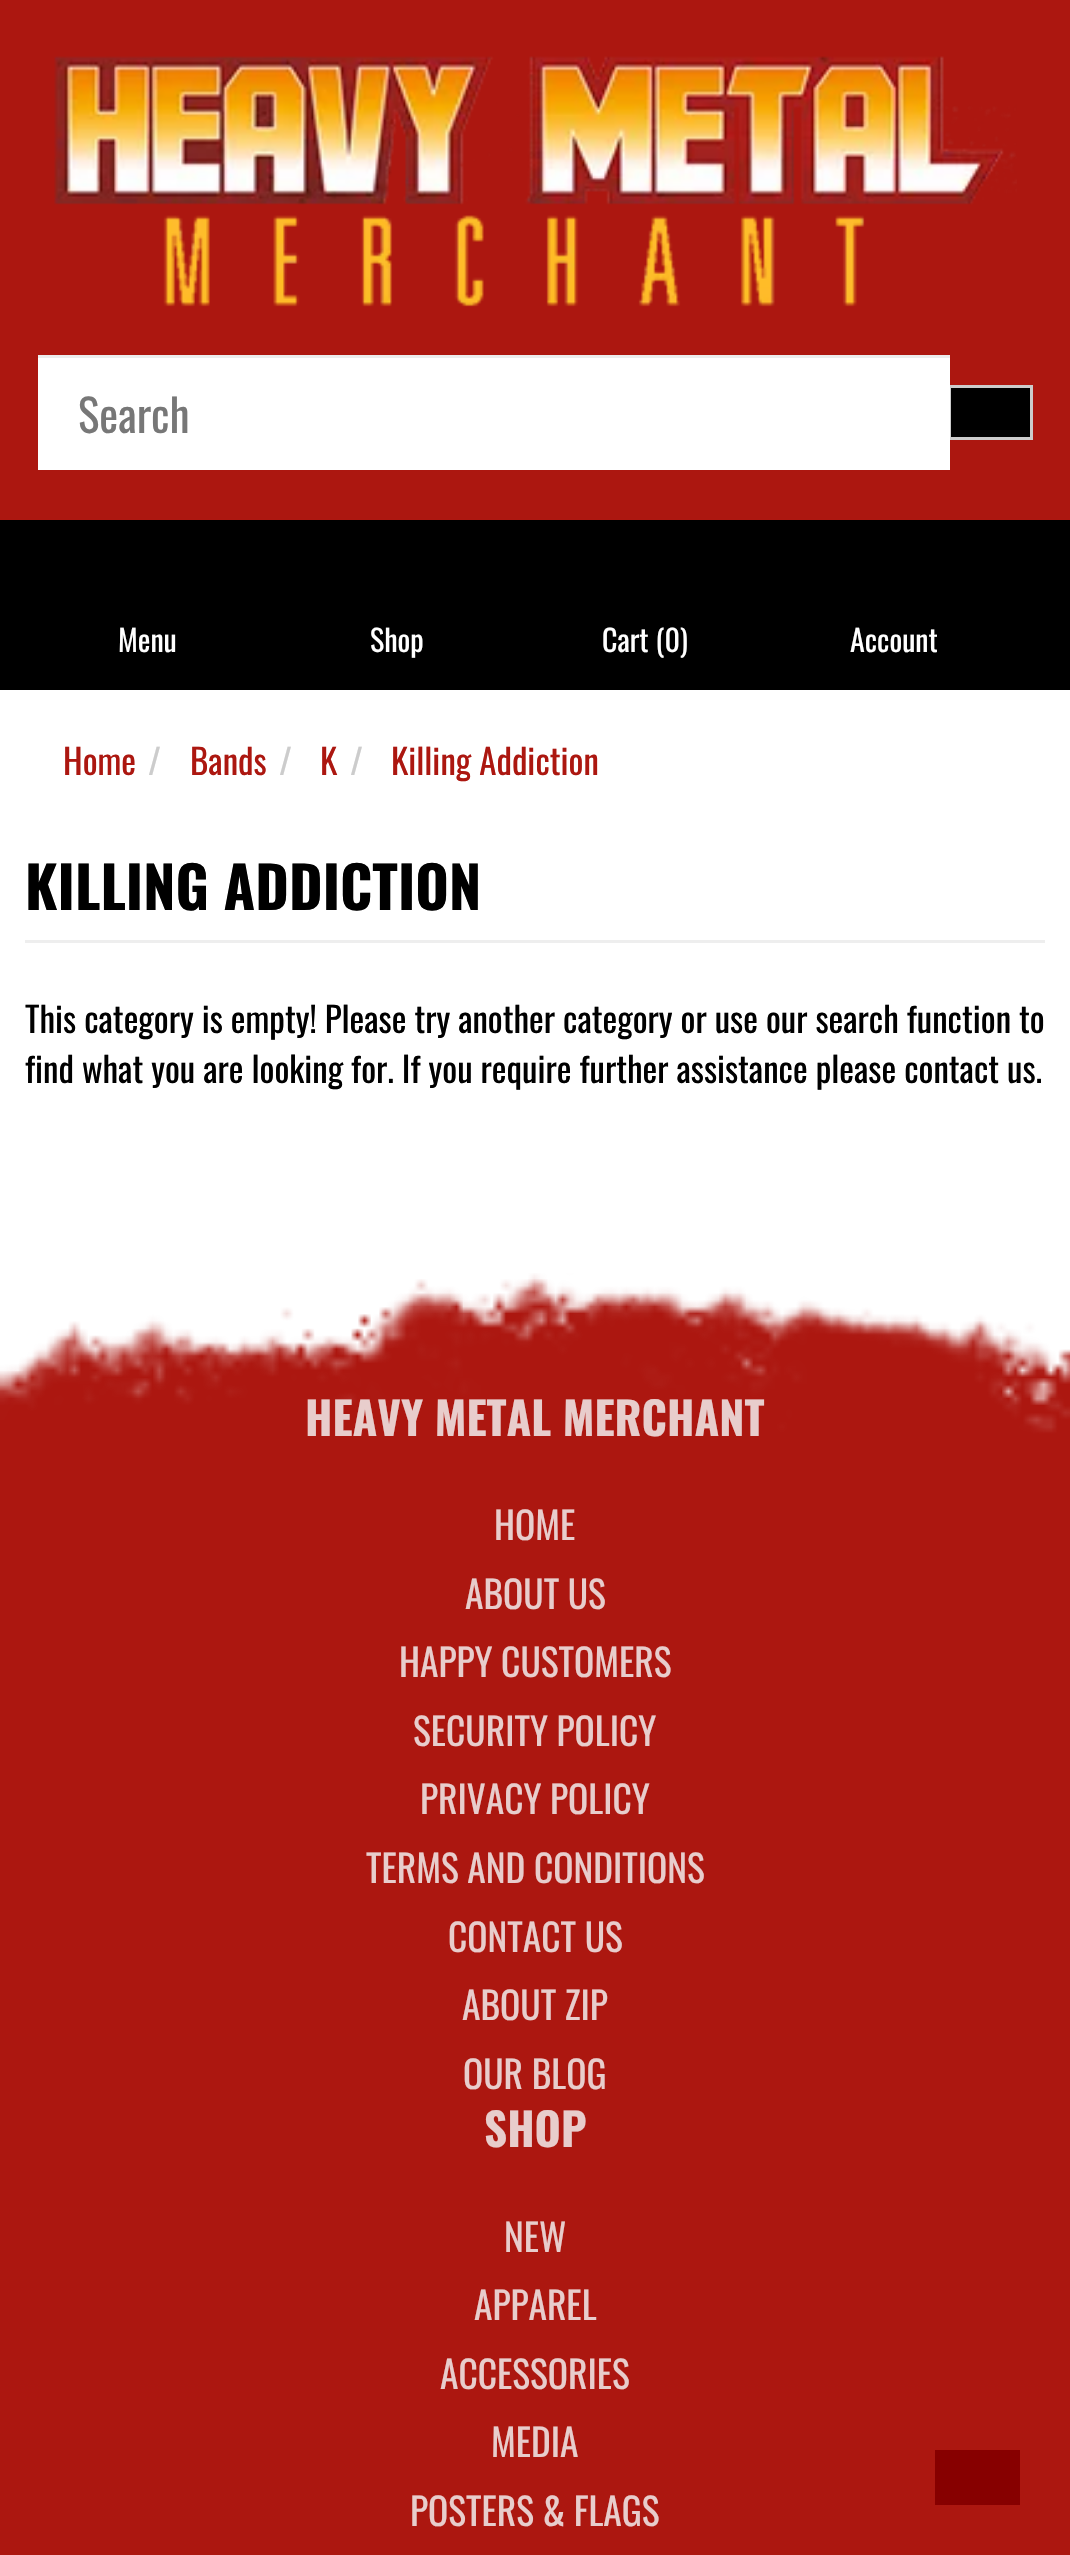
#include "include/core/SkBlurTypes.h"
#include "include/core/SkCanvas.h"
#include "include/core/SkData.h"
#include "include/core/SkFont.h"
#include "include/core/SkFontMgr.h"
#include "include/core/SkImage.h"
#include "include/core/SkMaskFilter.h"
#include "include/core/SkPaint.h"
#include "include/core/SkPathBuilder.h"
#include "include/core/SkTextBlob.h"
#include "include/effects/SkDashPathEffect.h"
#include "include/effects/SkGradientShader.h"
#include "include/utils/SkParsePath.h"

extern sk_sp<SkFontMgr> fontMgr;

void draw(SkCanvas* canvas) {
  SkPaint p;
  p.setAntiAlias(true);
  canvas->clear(SK_ColorWHITE);
  p.setColor(SkColorSetRGB(172, 23, 16));
  canvas->drawRect(SkRect::MakeLTRB(0, 0, 1070, 520), p);
  canvas->drawImageRect(SkImages::DeferredFromEncodedData(SkData::MakeFromFileName("images/1.png")), SkRect::MakeLTRB(54, 56, 1017, 307), SkSamplingOptions());
  p.setColor(SK_ColorBLACK);
  canvas->drawRect(SkRect::MakeLTRB(949.5f, 386.5f, 1031.5f, 438.5f), p);
  p.setStyle(SkPaint::kStroke_Style);
  p.setStrokeWidth(3);
  p.setColor(SkColorSetRGB(204, 204, 204));
  canvas->drawRect(SkRect::MakeLTRB(949.5f, 386.5f, 1031.5f, 438.5f), p);
  p.setStyle(SkPaint::kFill_Style);
  p.setColor(SK_ColorWHITE);
  canvas->drawRect(SkRect::MakeLTRB(38, 358, 950, 470), p);
  p.setColor(SkColorSetRGB(236, 236, 236));
  canvas->drawRect(SkRect::MakeLTRB(38, 355, 950, 358), p);
  p.setColor(SK_ColorBLACK);
  canvas->drawRect(SkRect::MakeLTRB(0, 520, 1070, 690), p);
  p.setColor(SkColorSetRGB(238, 238, 238));
  canvas->drawRect(SkRect::MakeLTRB(25, 940, 1045, 943), p);
  canvas->drawImageRect(SkImages::DeferredFromEncodedData(SkData::MakeFromFileName("images/2.png")), SkRect::MakeLTRB(0, 1273, 1070, 2555), SkSamplingOptions());
  p.setColor(SkColorSetRGB(135, 0, 0));
  canvas->drawRect(SkRect::MakeLTRB(935, 2450, 1020, 2505), p);
  SkFont font1(fontMgr->matchFamilyStyle("Oswald", SkFontStyle::Normal()), 45);
  font1.setSubpixel(true);
  p.setColor(SkColorSetRGB(119, 119, 119));
  canvas->drawString("Search", 78, 433, font1, p);
  SkFont font2(fontMgr->matchFamilyStyle("Oswald", SkFontStyle::Normal()), 30);
  font2.setSubpixel(true);
  p.setColor(SK_ColorWHITE);
  canvas->drawString("Menu", 118, 652, font2, p);
  canvas->drawString("Shop", 370, 652, font2, p);
  canvas->drawString("Cart (0)", 602, 652, font2, p);
  canvas->drawString("Account", 850, 652, font2, p);
  SkFont font3(fontMgr->matchFamilyStyle("Oswald", SkFontStyle::Normal()), 35);
  font3.setSubpixel(true);
  p.setColor(SkColorSetRGB(172, 23, 16));
  canvas->drawString("Home", 63, 775, font3, p);
  p.setColor(SkColorSetRGB(204, 204, 204));
  canvas->drawString("/", 148, 775, font3, p);
  p.setColor(SkColorSetRGB(172, 23, 16));
  canvas->drawString("Bands", 190, 775, font3, p);
  p.setColor(SkColorSetRGB(204, 204, 204));
  canvas->drawString("/", 279, 775, font3, p);
  p.setColor(SkColorSetRGB(172, 23, 16));
  canvas->drawString("K", 320, 775, font3, p);
  p.setColor(SkColorSetRGB(204, 204, 204));
  canvas->drawString("/", 350, 775, font3, p);
  p.setColor(SkColorSetRGB(172, 23, 16));
  canvas->drawString("Killing Addiction", 391, 775, font3, p);
  SkFont font4(fontMgr->matchFamilyStyle("Oswald", SkFontStyle::Bold()), 57.5f);
  font4.setSubpixel(true);
  p.setColor(SK_ColorBLACK);
  canvas->drawString("KILLING ADDICTION", 25, 910, font4, p);
  canvas->drawString("This category is empty! Please try another category or use our search function to", 25, 1033, font3, p);
  canvas->drawString("find what you are looking for. If you require further assistance please contact us.", 25, 1083, font3, p);
  SkFont font5(fontMgr->matchFamilyStyle("Oswald", SkFontStyle::Bold()), 45);
  font5.setSubpixel(true);
  p.setColor(SkColorSetRGB(232, 205, 204));
  canvas->drawString("HEAVY METAL MERCHANT", 305, 1436, font5, p);
  SkFont font6(fontMgr->matchFamilyStyle("Oswald", SkFontStyle::Normal()), 37.5f);
  font6.setSubpixel(true);
  canvas->drawString("HOME", 494, 1540, font6, p);
  canvas->drawString("ABOUT US", 465, 1609, font6, p);
  canvas->drawString("HAPPY CUSTOMERS", 399, 1677, font6, p);
  canvas->drawString("SECURITY POLICY", 413, 1746, font6, p);
  canvas->drawString("PRIVACY POLICY", 420, 1814, font6, p);
  canvas->drawString("TERMS AND CONDITIONS", 366, 1883, font6, p);
  canvas->drawString("CONTACT US", 448, 1952, font6, p);
  canvas->drawString("ABOUT ZIP", 462, 2020, font6, p);
  canvas->drawString("OUR BLOG", 463, 2089, font6, p);
  canvas->drawString("SHOP", 484, 2147, font5, p);
  canvas->drawString("NEW", 504, 2252, font6, p);
  canvas->drawString("APPAREL", 474, 2320, font6, p);
  canvas->drawString("ACCESSORIES", 440, 2389, font6, p);
  canvas->drawString("MEDIA", 491, 2457, font6, p);
  canvas->drawString("POSTERS & FLAGS", 410, 2526, font6, p);
}
